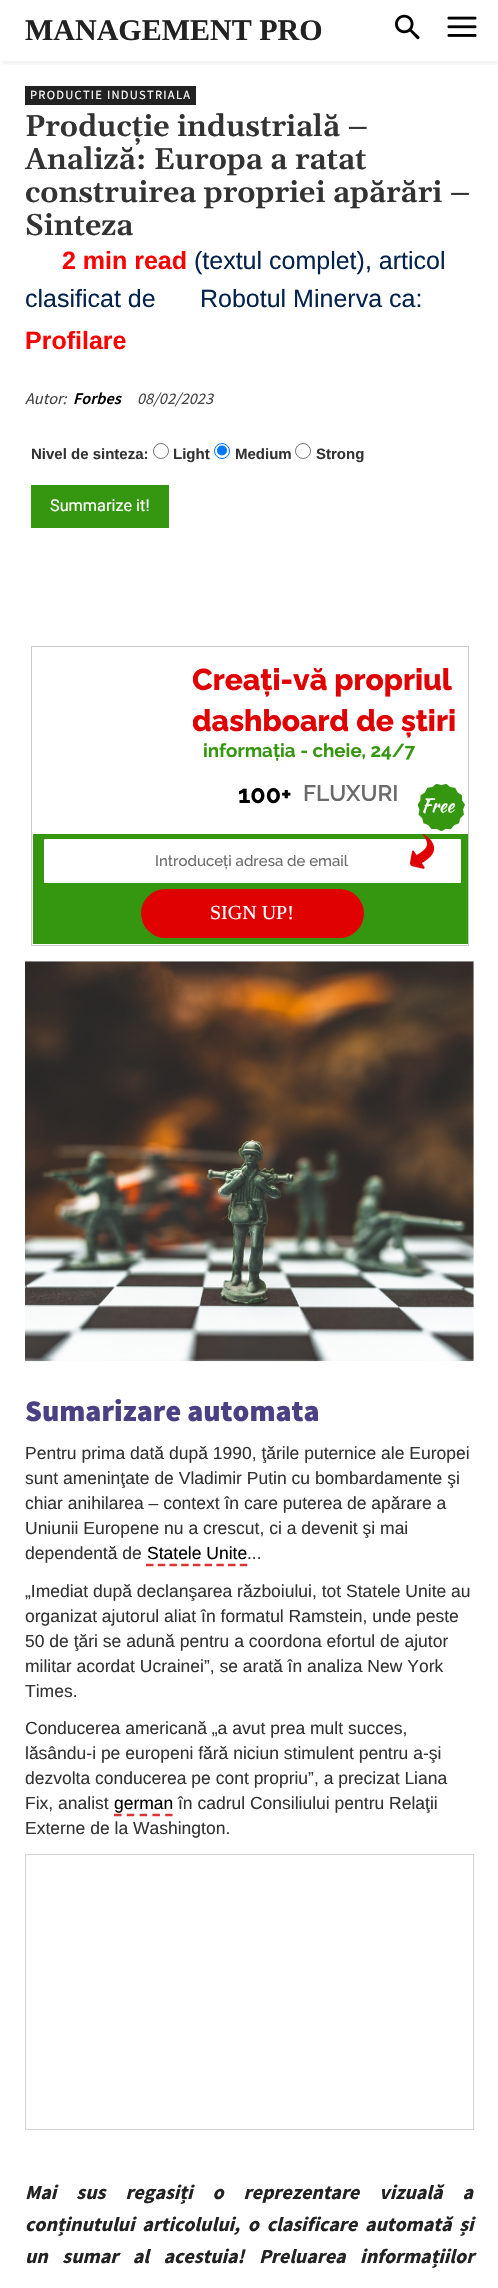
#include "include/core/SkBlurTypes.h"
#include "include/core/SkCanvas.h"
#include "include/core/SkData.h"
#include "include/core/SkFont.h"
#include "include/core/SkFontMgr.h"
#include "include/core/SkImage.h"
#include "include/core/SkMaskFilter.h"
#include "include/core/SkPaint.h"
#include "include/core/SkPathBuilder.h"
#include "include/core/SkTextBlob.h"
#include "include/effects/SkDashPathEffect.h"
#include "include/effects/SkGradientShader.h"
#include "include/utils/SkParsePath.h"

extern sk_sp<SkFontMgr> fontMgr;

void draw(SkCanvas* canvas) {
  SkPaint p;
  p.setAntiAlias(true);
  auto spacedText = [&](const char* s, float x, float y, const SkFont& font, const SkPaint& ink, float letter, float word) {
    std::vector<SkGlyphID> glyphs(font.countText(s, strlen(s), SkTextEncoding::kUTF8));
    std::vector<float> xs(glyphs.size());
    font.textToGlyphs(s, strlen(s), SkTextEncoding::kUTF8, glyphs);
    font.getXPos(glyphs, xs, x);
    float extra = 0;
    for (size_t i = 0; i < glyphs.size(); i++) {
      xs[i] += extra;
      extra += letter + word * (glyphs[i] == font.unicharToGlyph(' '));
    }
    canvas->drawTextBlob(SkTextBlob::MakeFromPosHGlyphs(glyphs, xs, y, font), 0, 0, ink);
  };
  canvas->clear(SK_ColorWHITE);
  canvas->drawImageRect(SkImages::DeferredFromEncodedData(SkData::MakeFromFileName("images/1.png")), SkRect::MakeLTRB(395, 14, 420, 40), SkSamplingOptions());
  canvas->drawImageRect(SkImages::DeferredFromEncodedData(SkData::MakeFromFileName("images/2.png")), SkRect::MakeLTRB(447, 16, 477, 37), SkSamplingOptions());
  canvas->save();
  canvas->clipRect(SkRect::MakeLTRB(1, 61, 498, 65));
  p.setColor(SkColorSetARGB(15, 0, 0, 0));
  p.setMaskFilter(SkMaskFilter::MakeBlur(kNormal_SkBlurStyle, 2.5f));
  canvas->drawRect(SkRect::MakeLTRB(1, 3, 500, 64), p);
  p.setMaskFilter(nullptr);
  canvas->restore();
  p.setColor(SkColorSetRGB(34, 34, 34));
  canvas->drawRect(SkRect::MakeLTRB(25, 86, 196, 105), p);
  p.setStyle(SkPaint::kStroke_Style);
  p.setStrokeWidth(1);
  p.setColor(SkColorSetRGB(118, 118, 118));
  canvas->drawCircle(161, 451, 7.5f, p);
  p.setColor(SkColorSetRGB(0, 117, 255));
  canvas->drawCircle(222, 451, 7.5f, p);
  p.setStyle(SkPaint::kFill_Style);
  canvas->drawCircle(222, 450.5f, 5, p);
  p.setStyle(SkPaint::kStroke_Style);
  p.setColor(SkColorSetRGB(118, 118, 118));
  canvas->drawCircle(303, 451, 7.5f, p);
  p.setStyle(SkPaint::kFill_Style);
  p.setColor(SkColorSetRGB(53, 150, 15));
  canvas->drawRect(SkRect::MakeLTRB(31, 485, 169, 528), p);
  p.setStyle(SkPaint::kStroke_Style);
  p.setColor(SkColorSetRGB(204, 204, 204));
  canvas->drawRect(SkRect::MakeLTRB(31.5f, 646.5f, 468.5f, 945.5f), p);
  canvas->drawImageRect(SkImages::DeferredFromEncodedData(SkData::MakeFromFileName("images/3.png")), SkRect::MakeLTRB(418, 784, 465, 831), SkSamplingOptions());
  p.setStyle(SkPaint::kFill_Style);
  p.setColor(SkColorSetRGB(53, 150, 15));
  canvas->drawRect(SkRect::MakeLTRB(33, 834, 468, 944), p);
  p.setColor(SK_ColorWHITE);
  canvas->drawRoundRect(SkRect::MakeLTRB(44, 839, 461, 883), 1, 1, p);
  canvas->drawImageRect(SkImages::DeferredFromEncodedData(SkData::MakeFromFileName("images/4.png")), SkRect::MakeLTRB(409, 834, 435, 869), SkSamplingOptions());
  p.setColor(SkColorSetRGB(224, 2, 2));
  canvas->drawRoundRect(SkRect::MakeLTRB(141, 889, 364, 938), 24.5f, 24.5f, p);
  canvas->drawImageRect(SkImages::DeferredFromEncodedData(SkData::MakeFromFileName("images/5.png")), SkRect::MakeLTRB(25, 961, 474, 1362), SkSamplingOptions());
  p.setStyle(SkPaint::kStroke_Style);
  p.setStrokeWidth(2.5f);
  p.setColor(SkColorSetRGB(221, 51, 51));
  p.setPathEffect(SkDashPathEffect::Make({{7.5f, 4.22f}}, 0));
  canvas->drawPath(SkPathBuilder().moveTo(146, 1565).lineTo(247.5f, 1565).detach(), p);
  p.setPathEffect(nullptr);
  p.setPathEffect(SkDashPathEffect::Make({{7.5f, 5.31f}}, 0));
  canvas->drawPath(SkPathBuilder().moveTo(114, 1815).lineTo(172.5f, 1815).detach(), p);
  p.setPathEffect(nullptr);
  p.setStrokeWidth(1);
  p.setColor(SkColorSetRGB(211, 211, 211));
  canvas->drawRect(SkRect::MakeLTRB(25.5f, 1854.5f, 473.5f, 2129.5f), p);
  SkFont font1(fontMgr->matchFamilyStyle("Liberation Serif", SkFontStyle::Bold()), 30);
  font1.setSubpixel(true);
  p.setStyle(SkPaint::kFill_Style);
  p.setColor(SkColorSetRGB(34, 34, 34));
  canvas->drawString("MANAGEMENT PRO", 25, 40, font1, p);
  SkFont font2(fontMgr->matchFamilyStyle("Source Sans Pro", SkFontStyle::Normal()), 12.5f);
  font2.setSubpixel(true);
  p.setColor(SK_ColorWHITE);
  spacedText("PRODUCTIE INDUSTRIALA", 30, 99, font2, p, 1.25f, 0);
  SkFont font3(fontMgr->matchFamilyStyle("Gelasio", SkFontStyle(600, SkFontStyle::kNormal_Width, SkFontStyle::kUpright_Slant)), 30);
  font3.setSubpixel(true);
  p.setColor(SkColorSetRGB(51, 51, 51));
  canvas->drawString("Producție industrială –", 25, 136, font3, p);
  canvas->drawString("Analiză: Europa a ratat", 25, 169, font3, p);
  canvas->drawString("construirea propriei apărări –", 25, 202, font3, p);
  canvas->drawString("Sinteza", 25, 235, font3, p);
  SkFont font4(fontMgr->matchFamilyStyle("Liberation Sans", SkFontStyle::Bold()), 25);
  font4.setSubpixel(true);
  p.setColor(SkColorSetRGB(255, 0, 0));
  canvas->drawString("2 min read", 62, 269, font4, p);
  SkFont font5(fontMgr->matchFamilyStyle("Liberation Sans", SkFontStyle::Normal()), 25);
  font5.setSubpixel(true);
  p.setColor(SkColorSetRGB(3, 34, 76));
  canvas->drawString("(textul complet), articol", 194, 269, font5, p);
  canvas->drawString("clasificat de", 25, 307, font5, p);
  canvas->drawString("Robotul Minerva ca:", 200, 307, font5, p);
  p.setColor(SkColorSetRGB(255, 0, 0));
  canvas->drawString("Profilare", 25, 349, font4, p);
  SkFont font6(fontMgr->matchFamilyStyle("Source Sans Pro", SkFontStyle::Italic()), 16.25f);
  font6.setSubpixel(true);
  p.setColor(SkColorSetRGB(68, 68, 68));
  canvas->drawString("Autor:", 25, 404, font6, p);
  SkFont font7(fontMgr->matchFamilyStyle("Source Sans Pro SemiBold", SkFontStyle(600, SkFontStyle::kNormal_Width, SkFontStyle::kItalic_Slant)), 16.25f);
  font7.setSubpixel(true);
  p.setColor(SK_ColorBLACK);
  canvas->drawString("Forbes", 73, 404, font7, p);
  p.setColor(SkColorSetRGB(68, 68, 68));
  canvas->drawString("08/02/2023", 137, 404, font6, p);
  SkFont font8(fontMgr->matchFamilyStyle("Liberation Sans", SkFontStyle::Bold()), 15);
  font8.setSubpixel(true);
  p.setColor(SkColorSetRGB(51, 51, 51));
  canvas->drawString("Nivel de sinteza:", 31, 459, font8, p);
  canvas->drawString("Light", 173, 459, font8, p);
  canvas->drawString("Medium", 235, 459, font8, p);
  canvas->drawString("Strong", 316, 459, font8, p);
  SkFont font9(fontMgr->matchFamilyStyle("Roboto", SkFontStyle::Normal()), 16.25f);
  font9.setSubpixel(true);
  p.setColor(SK_ColorWHITE);
  canvas->drawString("Summarize it!", 50, 511, font9, p);
  canvas->save();
  canvas->clipRect(SkRect::MakeLTRB(193, 663, 491, 743));
  SkFont font10(fontMgr->matchFamilyStyle("Raleway", SkFontStyle(800, SkFontStyle::kNormal_Width, SkFontStyle::kUpright_Slant)), 30);
  font10.setSubpixel(true);
  p.setColor(SkColorSetRGB(224, 2, 2));
  canvas->drawString("Creați-vă propriul", 192, 690, font10, p);
  canvas->restore();
  canvas->save();
  canvas->clipRect(SkRect::MakeLTRB(193, 704, 470, 739));
  canvas->drawString("dashboard de știri", 192, 731, font10, p);
  canvas->restore();
  SkFont font11(fontMgr->matchFamilyStyle("Raleway", SkFontStyle::Bold()), 18.75f);
  font11.setSubpixel(true);
  p.setColor(SkColorSetRGB(53, 150, 15));
  canvas->drawString("informația - cheie, 24/7", 203, 757, font11, p);
  SkFont font12(fontMgr->matchFamilyStyle("Raleway", SkFontStyle::Bold()), 25);
  font12.setSubpixel(true);
  p.setColor(SK_ColorBLACK);
  canvas->drawString("100+", 238, 803, font12, p);
  SkFont font13(fontMgr->matchFamilyStyle("Raleway", SkFontStyle(600, SkFontStyle::kNormal_Width, SkFontStyle::kUpright_Slant)), 22.5f);
  font13.setSubpixel(true);
  p.setColor(SkColorSetRGB(107, 107, 107));
  canvas->drawString("FLUXURI", 303, 801, font13, p);
  SkFont font14(fontMgr->matchFamilyStyle("Kaushan Script", SkFontStyle::Normal()), 18.75f);
  font14.setSubpixel(true);
  p.setColor(SK_ColorWHITE);
  canvas->drawString("Free", 421, 812, font14, p);
  SkFont font15(fontMgr->matchFamilyStyle("Raleway", SkFontStyle(500, SkFontStyle::kNormal_Width, SkFontStyle::kUpright_Slant)), 15);
  font15.setSubpixel(true);
  p.setColor(SkColorSetRGB(107, 107, 107));
  canvas->drawString("Introduceți adresa de email", 155, 866, font15, p);
  SkFont font16(fontMgr->matchFamilyStyle("Liberation Serif", SkFontStyle::Normal()), 20);
  font16.setSubpixel(true);
  p.setColor(SK_ColorWHITE);
  canvas->drawString("SIGN UP!", 210, 919, font16, p);
  SkFont font17(fontMgr->matchFamilyStyle("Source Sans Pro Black", SkFontStyle(900, SkFontStyle::kNormal_Width, SkFontStyle::kUpright_Slant)), 30);
  font17.setSubpixel(true);
  p.setColor(SkColorSetRGB(76, 64, 132));
  canvas->drawString("Sumarizare automata", 25, 1421, font17, p);
  SkFont font18(fontMgr->matchFamilyStyle("Liberation Sans", SkFontStyle::Normal()), 17.5f);
  font18.setSubpixel(true);
  p.setColor(SkColorSetRGB(51, 51, 51));
  canvas->drawString("Pentru prima dată după 1990, ţările puternice ale Europei", 25, 1459, font18, p);
  canvas->drawString("sunt ameninţate de Vladimir Putin cu bombardamente şi", 25, 1484, font18, p);
  canvas->drawString("chiar anihilarea – context în care puterea de apărare a", 25, 1509, font18, p);
  canvas->drawString("Uniunii Europene nu a crescut, ci a devenit şi mai", 25, 1534, font18, p);
  canvas->drawString("dependentă de", 25, 1559, font18, p);
  p.setColor(SK_ColorBLACK);
  canvas->drawString("Statele Unite", 147, 1559, font18, p);
  p.setColor(SkColorSetRGB(51, 51, 51));
  canvas->drawString("...", 247, 1559, font18, p);
  canvas->drawString("„Imediat după declanşarea războiului, tot Statele Unite au", 25, 1597, font18, p);
  canvas->drawString("organizat ajutorul aliat în formatul Ramstein, unde peste", 25, 1622, font18, p);
  canvas->drawString("50 de ţări se adună pentru a coordona efortul de ajutor", 25, 1647, font18, p);
  canvas->drawString("militar acordat Ucrainei”, se arată în analiza New York", 25, 1672, font18, p);
  canvas->drawString("Times.", 25, 1697, font18, p);
  canvas->drawString("Conducerea americană „a avut prea mult succes,", 25, 1734, font18, p);
  canvas->drawString("lăsându-i pe europeni fără niciun stimulent pentru a-şi", 25, 1759, font18, p);
  canvas->drawString("dezvolta conducerea pe cont propriu”, a precizat Liana", 25, 1784, font18, p);
  canvas->drawString("Fix, analist", 25, 1809, font18, p);
  p.setColor(SK_ColorBLACK);
  canvas->drawString("german", 114, 1809, font18, p);
  p.setColor(SkColorSetRGB(51, 51, 51));
  canvas->drawString("în cadrul Consiliului pentru Relaţii", 178, 1809, font18, p);
  canvas->drawString("Externe de la Washington.", 25, 1834, font18, p);
  SkFont font19(fontMgr->matchFamilyStyle("Source Sans Pro", SkFontStyle::BoldItalic()), 20);
  font19.setSubpixel(true);
  p.setColor(SkColorSetRGB(34, 34, 34));
  spacedText("Mai sus regasiți o reprezentare vizuală a", 25, 2199, font19, p, 0, 16);
  spacedText("conținutului articolului, o clasificare automată și", 25, 2231, font19, p, 0, 3.75f);
  spacedText("un sumar al acestuia! Preluarea informațiilor", 25, 2263, font19, p, 0, 10.5f);
}
